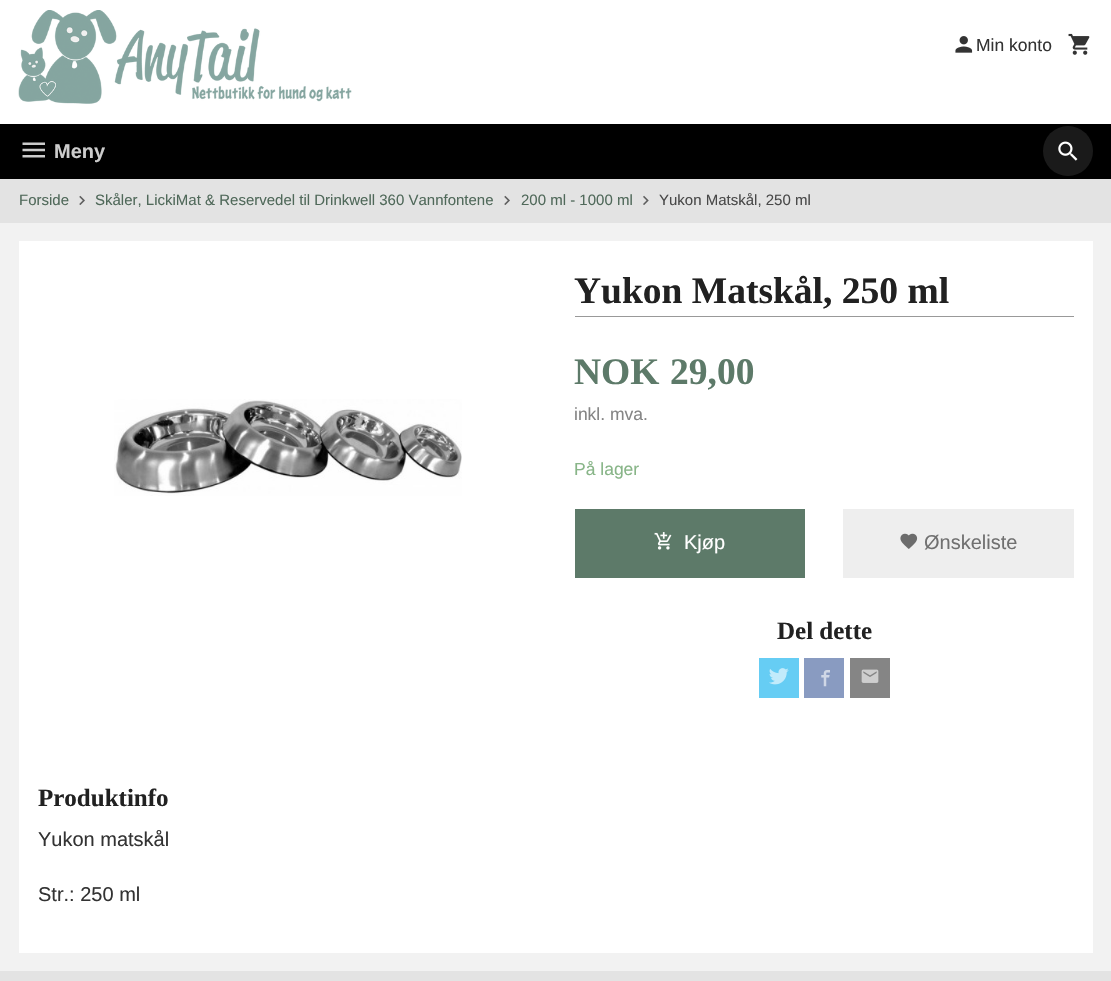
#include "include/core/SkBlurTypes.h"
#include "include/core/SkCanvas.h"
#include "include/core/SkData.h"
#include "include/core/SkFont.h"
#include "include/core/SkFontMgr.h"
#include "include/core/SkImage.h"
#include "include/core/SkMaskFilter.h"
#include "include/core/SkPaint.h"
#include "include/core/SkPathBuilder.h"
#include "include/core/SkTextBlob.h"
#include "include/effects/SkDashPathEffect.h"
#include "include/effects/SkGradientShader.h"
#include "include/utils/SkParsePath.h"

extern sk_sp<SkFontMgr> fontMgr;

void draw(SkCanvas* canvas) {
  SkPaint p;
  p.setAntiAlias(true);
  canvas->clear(SkColorSetRGB(242, 242, 242));
  p.setColor(SK_ColorWHITE);
  canvas->drawRect(SkRect::MakeLTRB(0, 0, 1111, 124), p);
  canvas->drawImageRect(SkImages::DeferredFromEncodedData(SkData::MakeFromFileName("images/1.png")), SkRect::MakeLTRB(18, 10, 352, 104), SkSamplingOptions());
  canvas->drawImageRect(SkImages::DeferredFromEncodedData(SkData::MakeFromFileName("images/2.png")), SkRect::MakeLTRB(955, 36, 973, 53), SkSamplingOptions());
  canvas->drawImageRect(SkImages::DeferredFromEncodedData(SkData::MakeFromFileName("images/3.png")), SkRect::MakeLTRB(1068, 33, 1090, 55), SkSamplingOptions());
  p.setColor(SK_ColorBLACK);
  canvas->drawRect(SkRect::MakeLTRB(0, 124, 1111, 179), p);
  canvas->drawImageRect(SkImages::DeferredFromEncodedData(SkData::MakeFromFileName("images/4.png")), SkRect::MakeLTRB(22, 142, 45, 158), SkSamplingOptions());
  p.setColor(SkColorSetRGB(26, 26, 26));
  canvas->drawCircle(1068, 151, 25, p);
  canvas->drawImageRect(SkImages::DeferredFromEncodedData(SkData::MakeFromFileName("images/5.png")), SkRect::MakeLTRB(1058, 141, 1078, 161), SkSamplingOptions());
  p.setColor(SkColorSetRGB(227, 227, 227));
  canvas->drawRect(SkRect::MakeLTRB(0, 179, 1111, 223), p);
  canvas->drawImageRect(SkImages::DeferredFromEncodedData(SkData::MakeFromFileName("images/6.png")), SkRect::MakeLTRB(79, 195, 85, 205), SkSamplingOptions());
  canvas->drawImageRect(SkImages::DeferredFromEncodedData(SkData::MakeFromFileName("images/6.png")), SkRect::MakeLTRB(504, 195, 510, 205), SkSamplingOptions());
  canvas->drawImageRect(SkImages::DeferredFromEncodedData(SkData::MakeFromFileName("images/7.png")), SkRect::MakeLTRB(643, 195, 649, 205), SkSamplingOptions());
  p.setColor(SK_ColorWHITE);
  canvas->drawRect(SkRect::MakeLTRB(19, 241, 1093, 953), p);
  canvas->drawImageRect(SkImages::DeferredFromEncodedData(SkData::MakeFromFileName("images/8.png")), SkRect::MakeLTRB(114, 399, 462, 496), SkSamplingOptions());
  p.setColor(SkColorSetRGB(153, 153, 153));
  canvas->drawRect(SkRect::MakeLTRB(575, 316, 1074, 317), p);
  p.setColor(SkColorSetRGB(93, 122, 105));
  canvas->drawRect(SkRect::MakeLTRB(575, 509, 805, 578), p);
  canvas->drawImageRect(SkImages::DeferredFromEncodedData(SkData::MakeFromFileName("images/9.png")), SkRect::MakeLTRB(654, 532, 672, 550), SkSamplingOptions());
  p.setColor(SkColorSetRGB(238, 238, 238));
  canvas->drawRect(SkRect::MakeLTRB(843, 509, 1074, 578), p);
  canvas->drawImageRect(SkImages::DeferredFromEncodedData(SkData::MakeFromFileName("images/10.png")), SkRect::MakeLTRB(900, 533, 918, 549), SkSamplingOptions());
  p.setColor(SkColorSetRGB(102, 205, 244));
  canvas->drawRect(SkRect::MakeLTRB(759, 658, 799, 698), p);
  canvas->drawImageRect(SkImages::DeferredFromEncodedData(SkData::MakeFromFileName("images/11.png")), SkRect::MakeLTRB(769, 668, 789, 685), SkSamplingOptions());
  p.setColor(SkColorSetRGB(137, 155, 193));
  canvas->drawRect(SkRect::MakeLTRB(804, 658, 844, 698), p);
  canvas->drawImageRect(SkImages::DeferredFromEncodedData(SkData::MakeFromFileName("images/12.png")), SkRect::MakeLTRB(821, 670, 830, 687), SkSamplingOptions());
  p.setColor(SkColorSetRGB(133, 133, 133));
  canvas->drawRect(SkRect::MakeLTRB(850, 658, 890, 698), p);
  canvas->drawImageRect(SkImages::DeferredFromEncodedData(SkData::MakeFromFileName("images/13.png")), SkRect::MakeLTRB(861, 669, 879, 683), SkSamplingOptions());
  p.setColor(SkColorSetRGB(227, 227, 227));
  canvas->drawRect(SkRect::MakeLTRB(0, 971, 1111, 981), p);
  SkFont font1(fontMgr->matchFamilyStyle("Liberation Sans", SkFontStyle::Normal()), 17.5f);
  font1.setSubpixel(true);
  p.setColor(SkColorSetRGB(51, 51, 51));
  canvas->drawString("Min konto", 976, 51, font1, p);
  SkFont font2(fontMgr->matchFamilyStyle("Liberation Sans", SkFontStyle::Bold()), 20);
  font2.setSubpixel(true);
  p.setColor(SkColorSetRGB(204, 204, 204));
  canvas->drawString("Meny", 54, 158, font2, p);
  SkFont font3(fontMgr->matchFamilyStyle("Liberation Sans", SkFontStyle::Normal()), 15);
  font3.setSubpixel(true);
  p.setColor(SkColorSetRGB(80, 105, 90));
  canvas->drawString("Forside", 19, 205, font3, p);
  canvas->drawString("Skåler, LickiMat & Reservedel til Drinkwell 360 Vannfontene", 95, 205, font3, p);
  canvas->drawString("200 ml - 1000 ml", 521, 205, font3, p);
  p.setColor(SkColorSetRGB(73, 73, 73));
  canvas->drawString("Yukon Matskål, 250 ml", 659, 205, font3, p);
  SkFont font4(fontMgr->matchFamilyStyle("Liberation Serif", SkFontStyle::Bold()), 37.5f);
  font4.setSubpixel(true);
  p.setColor(SkColorSetRGB(33, 33, 33));
  canvas->drawString("Yukon Matskål, 250 ml", 574, 303, font4, p);
  p.setColor(SkColorSetRGB(93, 122, 105));
  canvas->drawString("NOK", 574, 384, font4, p);
  canvas->drawString("29,00", 670, 384, font4, p);
  p.setColor(SkColorSetRGB(133, 133, 133));
  canvas->drawString("inkl. mva.", 574, 420, font1, p);
  p.setColor(SkColorSetRGB(136, 181, 136));
  canvas->drawString("På lager", 574, 475, font1, p);
  SkFont font5(fontMgr->matchFamilyStyle("Liberation Sans", SkFontStyle::Normal()), 20);
  font5.setSubpixel(true);
  p.setColor(SK_ColorWHITE);
  canvas->drawString("Kjøp", 684, 549, font5, p);
  p.setColor(SkColorSetRGB(112, 112, 112));
  canvas->drawString("Ønskeliste", 924, 549, font5, p);
  SkFont font6(fontMgr->matchFamilyStyle("Liberation Serif", SkFontStyle::Bold()), 25);
  font6.setSubpixel(true);
  p.setColor(SkColorSetRGB(33, 33, 33));
  canvas->drawString("Del dette", 777, 639, font6, p);
  canvas->drawString("Produktinfo", 38, 806, font6, p);
  p.setColor(SkColorSetRGB(51, 51, 51));
  canvas->drawString("Yukon matskål", 38, 846, font5, p);
  canvas->drawString("Str.: 250 ml", 38, 901, font5, p);
}
